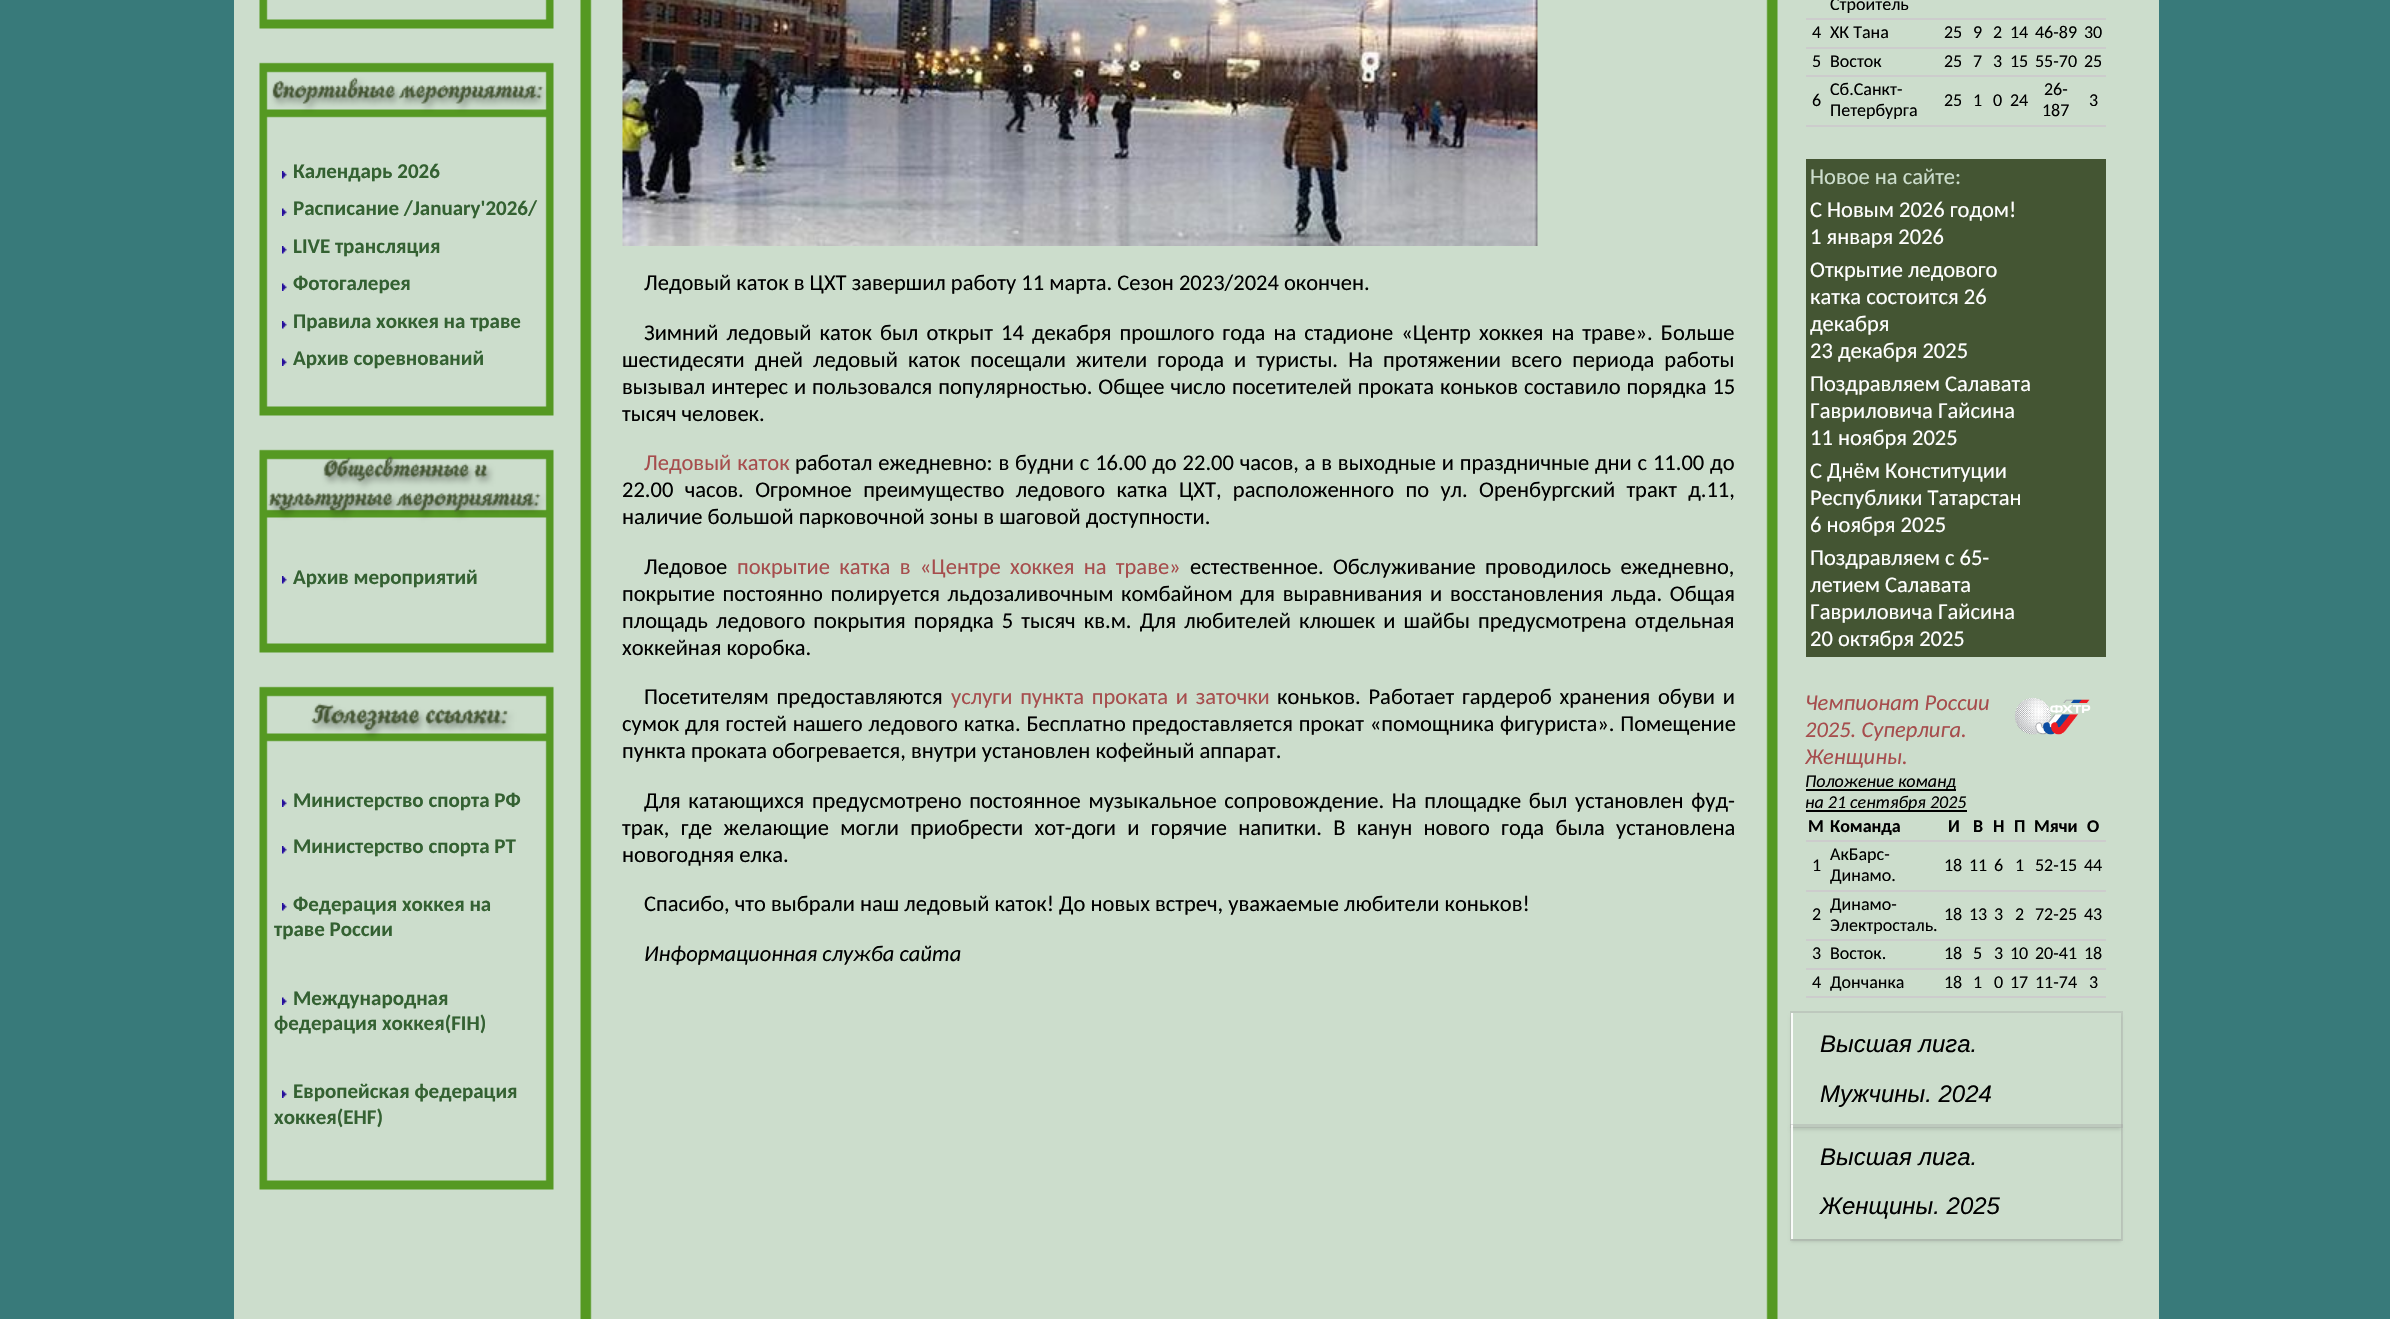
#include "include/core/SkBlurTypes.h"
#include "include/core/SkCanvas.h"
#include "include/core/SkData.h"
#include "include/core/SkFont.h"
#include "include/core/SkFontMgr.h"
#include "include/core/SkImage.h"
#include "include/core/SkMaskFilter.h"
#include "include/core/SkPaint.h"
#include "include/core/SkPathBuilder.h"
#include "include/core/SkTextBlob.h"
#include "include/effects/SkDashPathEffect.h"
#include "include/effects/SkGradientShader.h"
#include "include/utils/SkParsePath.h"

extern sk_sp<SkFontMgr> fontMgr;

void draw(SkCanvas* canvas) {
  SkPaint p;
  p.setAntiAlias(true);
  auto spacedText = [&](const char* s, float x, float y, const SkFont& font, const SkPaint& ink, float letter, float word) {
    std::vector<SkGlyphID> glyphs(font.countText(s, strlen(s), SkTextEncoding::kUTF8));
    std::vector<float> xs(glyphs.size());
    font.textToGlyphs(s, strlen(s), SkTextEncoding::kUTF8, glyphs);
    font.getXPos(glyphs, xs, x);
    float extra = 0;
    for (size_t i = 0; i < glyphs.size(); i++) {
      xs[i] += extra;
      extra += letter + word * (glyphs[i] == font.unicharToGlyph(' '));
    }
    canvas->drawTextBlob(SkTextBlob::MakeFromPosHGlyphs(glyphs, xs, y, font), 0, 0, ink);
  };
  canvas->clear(SkColorSetRGB(56, 122, 122));
  p.setColor(SkColorSetRGB(204, 221, 204));
  canvas->drawRect(SkRect::MakeLTRB(234, 0, 2159, 1319), p);
  canvas->drawImageRect(SkImages::DeferredFromEncodedData(SkData::MakeFromFileName("images/1.png")), SkRect::MakeLTRB(259, 0, 554, 29), SkSamplingOptions());
  canvas->drawImageRect(SkImages::DeferredFromEncodedData(SkData::MakeFromFileName("images/2.png")), SkRect::MakeLTRB(259, 62, 554, 153), SkSamplingOptions());
  canvas->drawImageRect(SkImages::DeferredFromEncodedData(SkData::MakeFromFileName("images/3.png")), SkRect::MakeLTRB(259, 153, 554, 378), SkSamplingOptions());
  canvas->drawImageRect(SkImages::DeferredFromEncodedData(SkData::MakeFromFileName("images/4.png")), SkRect::MakeLTRB(282, 171, 287, 179), SkSamplingOptions());
  canvas->drawImageRect(SkImages::DeferredFromEncodedData(SkData::MakeFromFileName("images/5.png")), SkRect::MakeLTRB(282, 208, 287, 216), SkSamplingOptions());
  canvas->drawImageRect(SkImages::DeferredFromEncodedData(SkData::MakeFromFileName("images/4.png")), SkRect::MakeLTRB(282, 246, 287, 254), SkSamplingOptions());
  canvas->drawImageRect(SkImages::DeferredFromEncodedData(SkData::MakeFromFileName("images/5.png")), SkRect::MakeLTRB(282, 283, 287, 291), SkSamplingOptions());
  canvas->drawImageRect(SkImages::DeferredFromEncodedData(SkData::MakeFromFileName("images/4.png")), SkRect::MakeLTRB(282, 321, 287, 329), SkSamplingOptions());
  canvas->drawImageRect(SkImages::DeferredFromEncodedData(SkData::MakeFromFileName("images/5.png")), SkRect::MakeLTRB(282, 358, 287, 366), SkSamplingOptions());
  canvas->drawImageRect(SkImages::DeferredFromEncodedData(SkData::MakeFromFileName("images/6.png")), SkRect::MakeLTRB(259, 378, 554, 416), SkSamplingOptions());
  canvas->drawImageRect(SkImages::DeferredFromEncodedData(SkData::MakeFromFileName("images/7.png")), SkRect::MakeLTRB(259, 449, 554, 540), SkSamplingOptions());
  canvas->drawImageRect(SkImages::DeferredFromEncodedData(SkData::MakeFromFileName("images/8.png")), SkRect::MakeLTRB(259, 540, 554, 615), SkSamplingOptions());
  canvas->drawImageRect(SkImages::DeferredFromEncodedData(SkData::MakeFromFileName("images/4.png")), SkRect::MakeLTRB(282, 576, 287, 584), SkSamplingOptions());
  canvas->drawImageRect(SkImages::DeferredFromEncodedData(SkData::MakeFromFileName("images/6.png")), SkRect::MakeLTRB(259, 615, 554, 653), SkSamplingOptions());
  canvas->drawImageRect(SkImages::DeferredFromEncodedData(SkData::MakeFromFileName("images/9.png")), SkRect::MakeLTRB(259, 686, 554, 777), SkSamplingOptions());
  canvas->drawImageRect(SkImages::DeferredFromEncodedData(SkData::MakeFromFileName("images/10.png")), SkRect::MakeLTRB(259, 777, 554, 1152), SkSamplingOptions());
  canvas->drawImageRect(SkImages::DeferredFromEncodedData(SkData::MakeFromFileName("images/5.png")), SkRect::MakeLTRB(282, 799, 287, 807), SkSamplingOptions());
  canvas->drawImageRect(SkImages::DeferredFromEncodedData(SkData::MakeFromFileName("images/4.png")), SkRect::MakeLTRB(282, 846, 287, 854), SkSamplingOptions());
  canvas->drawImageRect(SkImages::DeferredFromEncodedData(SkData::MakeFromFileName("images/4.png")), SkRect::MakeLTRB(282, 903, 287, 911), SkSamplingOptions());
  canvas->drawImageRect(SkImages::DeferredFromEncodedData(SkData::MakeFromFileName("images/5.png")), SkRect::MakeLTRB(282, 997, 287, 1005), SkSamplingOptions());
  canvas->drawImageRect(SkImages::DeferredFromEncodedData(SkData::MakeFromFileName("images/5.png")), SkRect::MakeLTRB(282, 1090, 287, 1098), SkSamplingOptions());
  canvas->drawImageRect(SkImages::DeferredFromEncodedData(SkData::MakeFromFileName("images/6.png")), SkRect::MakeLTRB(259, 1152, 554, 1190), SkSamplingOptions());
  canvas->drawImageRect(SkImages::DeferredFromEncodedData(SkData::MakeFromFileName("images/11.png")), SkRect::MakeLTRB(580, 0, 592, 1319), SkSamplingOptions());
  canvas->drawImageRect(SkImages::DeferredFromEncodedData(SkData::MakeFromFileName("images/12.png")), SkRect::MakeLTRB(622, 0, 1538, 246), SkSamplingOptions());
  canvas->drawImageRect(SkImages::DeferredFromEncodedData(SkData::MakeFromFileName("images/13.png")), SkRect::MakeLTRB(1766, 0, 1778, 1319), SkSamplingOptions());
  p.setColor(SkColorSetRGB(204, 204, 204));
  canvas->drawRect(SkRect::MakeLTRB(1806, 18, 2106, 20), p);
  canvas->drawRect(SkRect::MakeLTRB(1806, 47, 2106, 49), p);
  canvas->drawRect(SkRect::MakeLTRB(1806, 75, 2106, 77), p);
  canvas->drawRect(SkRect::MakeLTRB(1806, 125, 2106, 127), p);
  p.setColor(SkColorSetRGB(68, 85, 51));
  canvas->drawRect(SkRect::MakeLTRB(1806, 159, 2106, 657), p);
  canvas->drawImageRect(SkImages::DeferredFromEncodedData(SkData::MakeFromFileName("images/14.png")), SkRect::MakeLTRB(2015, 697, 2091, 735), SkSamplingOptions());
  p.setColor(SK_ColorBLACK);
  canvas->drawRect(SkRect::MakeLTRB(1806, 789, 1956, 791), p);
  canvas->drawRect(SkRect::MakeLTRB(1806, 810, 1967, 812), p);
  p.setColor(SkColorSetRGB(204, 204, 204));
  canvas->drawRect(SkRect::MakeLTRB(1806, 840, 2106, 842), p);
  canvas->drawRect(SkRect::MakeLTRB(1806, 890, 2106, 892), p);
  canvas->drawRect(SkRect::MakeLTRB(1806, 939, 2106, 941), p);
  canvas->drawRect(SkRect::MakeLTRB(1806, 968, 2106, 970), p);
  canvas->drawRect(SkRect::MakeLTRB(1806, 996, 2106, 998), p);
  canvas->save();
  canvas->clipPath(SkPathBuilder(SkPathFillType::kEvenOdd).moveTo(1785, 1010).lineTo(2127, 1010).lineTo(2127, 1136).lineTo(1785, 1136).close().moveTo(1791, 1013).lineTo(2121, 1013).lineTo(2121, 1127).lineTo(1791, 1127).close().detach(), true);
  p.setColor(SkColorSetARGB(26, 0, 0, 0));
  p.setMaskFilter(SkMaskFilter::MakeBlur(kNormal_SkBlurStyle, 1.5f));
  canvas->drawRect(SkRect::MakeLTRB(1791, 1016, 2121, 1130), p);
  p.setMaskFilter(nullptr);
  canvas->restore();
  p.setStyle(SkPaint::kStroke_Style);
  p.setStrokeWidth(2);
  p.setColor(SkColorSetARGB(77, 155, 155, 155));
  canvas->drawRect(SkRect::MakeLTRB(1791, 1012, 2122, 1127), p);
  p.setStyle(SkPaint::kFill_Style);
  p.setColor(SkColorSetARGB(230, 255, 255, 255));
  canvas->drawRect(SkRect::MakeLTRB(1791, 1013, 1793, 1127), p);
  canvas->save();
  canvas->clipPath(SkPathBuilder(SkPathFillType::kEvenOdd).moveTo(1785, 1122).lineTo(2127, 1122).lineTo(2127, 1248).lineTo(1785, 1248).close().moveTo(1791, 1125).lineTo(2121, 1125).lineTo(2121, 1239).lineTo(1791, 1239).close().detach(), true);
  p.setColor(SkColorSetARGB(26, 0, 0, 0));
  p.setMaskFilter(SkMaskFilter::MakeBlur(kNormal_SkBlurStyle, 1.5f));
  canvas->drawRect(SkRect::MakeLTRB(1791, 1128, 2121, 1242), p);
  p.setMaskFilter(nullptr);
  canvas->restore();
  p.setStyle(SkPaint::kStroke_Style);
  p.setColor(SkColorSetARGB(77, 155, 155, 155));
  canvas->drawRect(SkRect::MakeLTRB(1791, 1125, 2122, 1240), p);
  p.setStyle(SkPaint::kFill_Style);
  p.setColor(SkColorSetARGB(230, 255, 255, 255));
  canvas->drawRect(SkRect::MakeLTRB(1791, 1125, 1793, 1239), p);
  SkFont font1(fontMgr->matchFamilyStyle("Carlito", SkFontStyle::Bold()), 21);
  font1.setSubpixel(true);
  p.setColor(SkColorSetRGB(52, 97, 50));
  canvas->drawString("Календарь 2026", 293, 178, font1, p);
  canvas->drawString("Расписание /January'2026/", 293, 215, font1, p);
  canvas->drawString("LIVE трансляция", 293, 253, font1, p);
  canvas->drawString("Фотогалерея", 293, 290, font1, p);
  canvas->drawString("Правила хоккея на траве", 293, 328, font1, p);
  canvas->drawString("Архив соревнований", 293, 365, font1, p);
  canvas->drawString("Архив мероприятий", 293, 584, font1, p);
  canvas->drawString("Министерство спорта РФ", 293, 807, font1, p);
  canvas->drawString("Министерство спорта РТ", 293, 853, font1, p);
  canvas->drawString("Федерация хоккея на", 293, 911, font1, p);
  canvas->drawString("траве России", 274, 936, font1, p);
  canvas->drawString("Международная", 293, 1005, font1, p);
  canvas->drawString("федерация хоккея(FIH)", 274, 1030, font1, p);
  canvas->drawString("Европейская федерация", 293, 1098, font1, p);
  canvas->drawString("хоккея(EHF)", 274, 1124, font1, p);
  SkFont font2(fontMgr->matchFamilyStyle("Carlito", SkFontStyle::Normal()), 22.5f);
  font2.setSubpixel(true);
  p.setColor(SK_ColorBLACK);
  canvas->drawString("Ледовый каток в ЦХТ завершил работу 11 марта. Сезон 2023/2024 окончен.", 644, 290, font2, p);
  spacedText("Зимний ледовый каток был открыт 14 декабря прошлого года на стадионе «Центр хоккея на траве». Больше", 644, 340, font2, p, 0, 3);
  spacedText("шестидесяти дней ледовый каток посещали жители города и туристы. На протяжении всего периода работы", 622, 367, font2, p, 0, 5);
  spacedText("вызывал интерес и пользовался популярностью. Общее число посетителей проката коньков составило порядка 15", 622, 394, font2, p, 0, 0.9f);
  canvas->drawString("тысяч человек.", 622, 421, font2, p);
  p.setColor(SkColorSetRGB(166, 77, 77));
  spacedText("Ледовый каток", 644, 470, font2, p, 0, 1);
  p.setColor(SK_ColorBLACK);
  spacedText("работал ежедневно: в будни с 16.00 до 22.00 часов, а в выходные и праздничные дни с 11.00 до", 795, 470, font2, p, 0, 0.75f);
  spacedText("22.00 часов. Огромное преимущество ледового катка ЦХТ, расположенного по ул. Оренбургский тракт д.11,", 622, 497, font2, p, 0, 6.25f);
  canvas->drawString("наличие большой парковочной зоны в шаговой доступности.", 622, 524, font2, p);
  canvas->drawString("Ледовое", 644, 574, font2, p);
  p.setColor(SkColorSetRGB(166, 77, 77));
  spacedText("покрытие катка в «Центре хоккея на траве»", 737, 574, font2, p, 0, 4.25f);
  p.setColor(SK_ColorBLACK);
  spacedText("естественное. Обслуживание проводилось ежедневно,", 1190, 574, font2, p, 0, 4.25f);
  spacedText("покрытие постоянно полируется льдозаливочным комбайном для выравнивания и восстановления льда. Общая", 622, 601, font2, p, 0, 2.6f);
  spacedText("площадь ледового покрытия порядка 5 тысяч кв.м. Для любителей клюшек и шайбы предусмотрена отдельная", 622, 628, font2, p, 0, 3);
  canvas->drawString("хоккейная коробка.", 622, 655, font2, p);
  spacedText("Посетителям предоставляются", 644, 704, font2, p, 0, 2.75f);
  p.setColor(SkColorSetRGB(166, 77, 77));
  spacedText("услуги пункта проката и заточки", 951, 704, font2, p, 0, 2.75f);
  p.setColor(SK_ColorBLACK);
  spacedText("коньков. Работает гардероб хранения обуви и", 1277, 704, font2, p, 0, 2.75f);
  spacedText("сумок для гостей нашего ледового катка. Бесплатно предоставляется прокат «помощника фигуриста». Помещение", 622, 731, font2, p, 0, 0.75f);
  canvas->drawString("пункта проката обогревается, внутри установлен кофейный аппарат.", 622, 758, font2, p);
  spacedText("Для катающихся предусмотрено постоянное музыкальное сопровождение. На площадке был установлен фуд-", 644, 808, font2, p, 0, 2.6f);
  spacedText("трак, где желающие могли приобрести хот-доги и горячие напитки. В канун нового года была установлена", 622, 835, font2, p, 0, 6.25f);
  canvas->drawString("новогодняя елка.", 622, 862, font2, p);
  canvas->drawString("Спасибо, что выбрали наш ледовый каток! До новых встреч, уважаемые любители коньков!", 644, 911, font2, p);
  SkFont font3(fontMgr->matchFamilyStyle("Carlito", SkFontStyle::Italic()), 22.5f);
  font3.setSubpixel(true);
  canvas->drawString("Информационная служба сайта", 644, 961, font3, p);
  SkFont font4(fontMgr->matchFamilyStyle("Carlito", SkFontStyle::Normal()), 18);
  font4.setSubpixel(true);
  canvas->drawString("Строитель", 1830, 10, font4, p);
  canvas->drawString("4", 1812, 38, font4, p);
  canvas->drawString("ХК Тана", 1830, 38, font4, p);
  canvas->drawString("25", 1944, 38, font4, p);
  canvas->drawString("9", 1973, 38, font4, p);
  canvas->drawString("2", 1993, 38, font4, p);
  canvas->drawString("14", 2010, 38, font4, p);
  canvas->drawString("46-89", 2035, 38, font4, p);
  canvas->drawString("30", 2084, 38, font4, p);
  canvas->drawString("5", 1812, 67, font4, p);
  canvas->drawString("Восток", 1830, 67, font4, p);
  canvas->drawString("25", 1944, 67, font4, p);
  canvas->drawString("7", 1973, 67, font4, p);
  canvas->drawString("3", 1993, 67, font4, p);
  canvas->drawString("15", 2010, 67, font4, p);
  canvas->drawString("55-70", 2035, 67, font4, p);
  canvas->drawString("25", 2084, 67, font4, p);
  canvas->drawString("6", 1812, 106, font4, p);
  canvas->drawString("Сб.Санкт-", 1830, 95, font4, p);
  canvas->drawString("Петербурга", 1830, 116, font4, p);
  canvas->drawString("25", 1944, 106, font4, p);
  canvas->drawString("1", 1973, 106, font4, p);
  canvas->drawString("0", 1993, 106, font4, p);
  canvas->drawString("24", 2010, 106, font4, p);
  canvas->drawString("26-", 2044, 95, font4, p);
  canvas->drawString("187", 2042, 116, font4, p);
  canvas->drawString("3", 2089, 106, font4, p);
  p.setColor(SkColorSetRGB(204, 221, 204));
  canvas->drawString("Новое на сайте:", 1810, 184, font2, p);
  p.setColor(SK_ColorWHITE);
  canvas->drawString("С Новым 2026 годом!", 1810, 217, font2, p);
  canvas->drawString("1 января 2026", 1810, 244, font2, p);
  canvas->drawString("Открытие ледового", 1810, 277, font2, p);
  canvas->drawString("катка состоится 26", 1810, 304, font2, p);
  canvas->drawString("декабря", 1810, 331, font2, p);
  canvas->drawString("23 декабря 2025", 1810, 358, font2, p);
  canvas->drawString("Поздравляем Салавата", 1810, 391, font2, p);
  canvas->drawString("Гавриловича Гайсина", 1810, 418, font2, p);
  canvas->drawString("11 ноября 2025", 1810, 445, font2, p);
  canvas->drawString("С Днём Конституции", 1810, 478, font2, p);
  canvas->drawString("Республики Татарстан", 1810, 505, font2, p);
  canvas->drawString("6 ноября 2025", 1810, 532, font2, p);
  canvas->drawString("Поздравляем с 65-", 1810, 565, font2, p);
  canvas->drawString("летием Салавата", 1810, 592, font2, p);
  canvas->drawString("Гавриловича Гайсина", 1810, 619, font2, p);
  canvas->drawString("20 октября 2025", 1810, 646, font2, p);
  p.setColor(SkColorSetRGB(166, 77, 77));
  canvas->drawString("Чемпионат России", 1805, 710, font3, p);
  canvas->drawString("2025. Суперлига.", 1805, 737, font3, p);
  canvas->drawString("Женщины.", 1805, 764, font3, p);
  SkFont font5(fontMgr->matchFamilyStyle("Carlito", SkFontStyle::Italic()), 18);
  font5.setSubpixel(true);
  p.setColor(SK_ColorBLACK);
  canvas->drawString("Положение команд", 1805, 787, font5, p);
  canvas->drawString("на 21 сентября 2025", 1805, 808, font5, p);
  SkFont font6(fontMgr->matchFamilyStyle("Carlito", SkFontStyle::Bold()), 18);
  font6.setSubpixel(true);
  canvas->drawString("М", 1808, 832, font6, p);
  canvas->drawString("Команда", 1830, 832, font6, p);
  canvas->drawString("И", 1948, 832, font6, p);
  canvas->drawString("В", 1973, 832, font6, p);
  canvas->drawString("Н", 1993, 832, font6, p);
  canvas->drawString("П", 2014, 832, font6, p);
  canvas->drawString("Мячи", 2034, 832, font6, p);
  canvas->drawString("О", 2087, 832, font6, p);
  canvas->drawString("1", 1812, 871, font4, p);
  canvas->drawString("АкБарс-", 1830, 860, font4, p);
  canvas->drawString("Динамо.", 1830, 881, font4, p);
  canvas->drawString("18", 1944, 871, font4, p);
  canvas->drawString("11", 1969, 871, font4, p);
  canvas->drawString("6", 1994, 871, font4, p);
  canvas->drawString("1", 2015, 871, font4, p);
  canvas->drawString("52-15", 2035, 871, font4, p);
  canvas->drawString("44", 2084, 871, font4, p);
  canvas->drawString("2", 1812, 920, font4, p);
  canvas->drawString("Динамо-", 1830, 910, font4, p);
  canvas->drawString("Электросталь.", 1830, 931, font4, p);
  canvas->drawString("18", 1944, 920, font4, p);
  canvas->drawString("13", 1969, 920, font4, p);
  canvas->drawString("3", 1994, 920, font4, p);
  canvas->drawString("2", 2015, 920, font4, p);
  canvas->drawString("72-25", 2035, 920, font4, p);
  canvas->drawString("43", 2084, 920, font4, p);
  canvas->drawString("3", 1812, 959, font4, p);
  canvas->drawString("Восток.", 1830, 959, font4, p);
  canvas->drawString("18", 1944, 959, font4, p);
  canvas->drawString("5", 1973, 959, font4, p);
  canvas->drawString("3", 1994, 959, font4, p);
  canvas->drawString("10", 2010, 959, font4, p);
  canvas->drawString("20-41", 2035, 959, font4, p);
  canvas->drawString("18", 2084, 959, font4, p);
  canvas->drawString("4", 1812, 988, font4, p);
  canvas->drawString("Дончанка", 1830, 988, font4, p);
  canvas->drawString("18", 1944, 988, font4, p);
  canvas->drawString("1", 1973, 988, font4, p);
  canvas->drawString("0", 1994, 988, font4, p);
  canvas->drawString("17", 2010, 988, font4, p);
  canvas->drawString("11-74", 2035, 988, font4, p);
  canvas->drawString("3", 2089, 988, font4, p);
  SkFont font7(fontMgr->matchFamilyStyle("Liberation Sans", SkFontStyle::Italic()), 24);
  font7.setSubpixel(true);
  canvas->drawString("Высшая лига.", 1820, 1052, font7, p);
  canvas->drawString("Мужчины. 2024", 1820, 1102, font7, p);
  canvas->drawString("Высшая лига.", 1820, 1165, font7, p);
  canvas->drawString("Женщины. 2025", 1820, 1214, font7, p);
}
